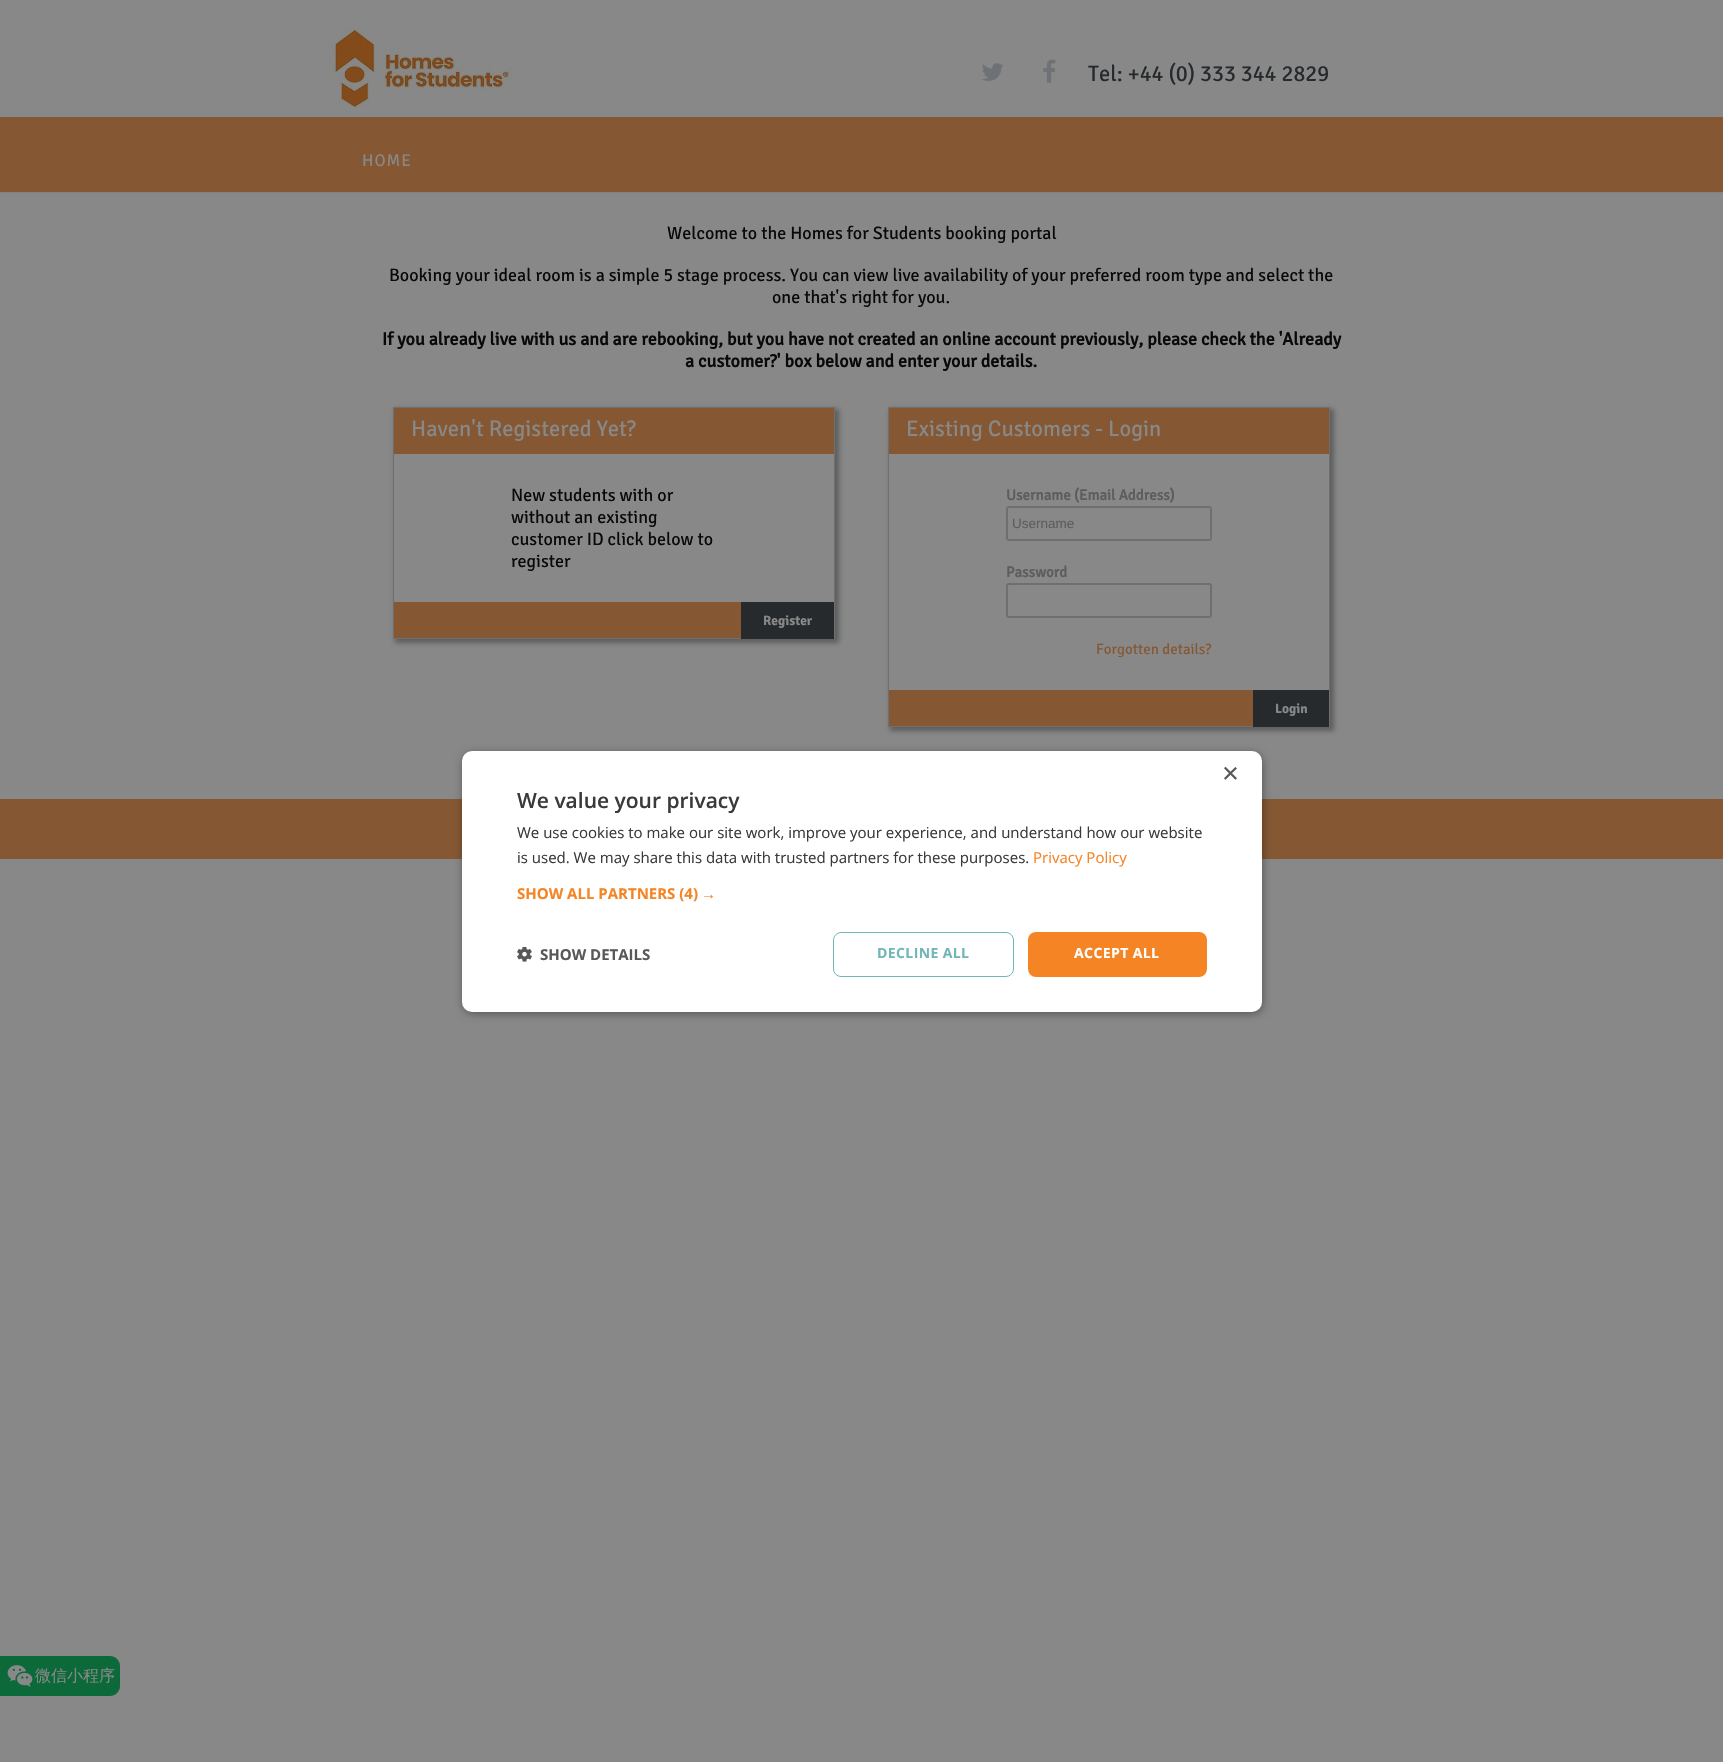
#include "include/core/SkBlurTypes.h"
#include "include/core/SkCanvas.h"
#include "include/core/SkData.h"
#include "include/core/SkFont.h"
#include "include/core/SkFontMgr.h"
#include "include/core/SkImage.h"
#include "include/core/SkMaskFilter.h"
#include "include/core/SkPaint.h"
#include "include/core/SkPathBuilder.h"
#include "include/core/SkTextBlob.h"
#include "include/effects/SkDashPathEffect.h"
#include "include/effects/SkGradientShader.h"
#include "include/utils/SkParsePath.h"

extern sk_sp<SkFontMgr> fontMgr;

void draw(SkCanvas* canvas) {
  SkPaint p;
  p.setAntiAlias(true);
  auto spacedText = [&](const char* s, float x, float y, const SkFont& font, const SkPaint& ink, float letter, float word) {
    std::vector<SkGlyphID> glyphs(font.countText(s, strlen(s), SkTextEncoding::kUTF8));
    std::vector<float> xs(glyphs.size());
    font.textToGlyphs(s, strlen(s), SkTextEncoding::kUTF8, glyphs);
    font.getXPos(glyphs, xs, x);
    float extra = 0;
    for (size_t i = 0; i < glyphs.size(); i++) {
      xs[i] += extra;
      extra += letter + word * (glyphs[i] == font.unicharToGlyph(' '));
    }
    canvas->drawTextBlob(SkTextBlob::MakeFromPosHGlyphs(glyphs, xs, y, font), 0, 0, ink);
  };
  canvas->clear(SkColorSetRGB(136, 136, 136));
  canvas->drawImageRect(SkImages::DeferredFromEncodedData(SkData::MakeFromFileName("images/1.png")), SkRect::MakeLTRB(322, 26, 514, 112), SkSamplingOptions());
  canvas->drawImageRect(SkImages::DeferredFromEncodedData(SkData::MakeFromFileName("images/2.png")), SkRect::MakeLTRB(982, 63, 1004, 81), SkSamplingOptions());
  canvas->drawImageRect(SkImages::DeferredFromEncodedData(SkData::MakeFromFileName("images/3.png")), SkRect::MakeLTRB(1043, 59, 1056, 83), SkSamplingOptions());
  p.setColor(SkColorSetRGB(130, 130, 130));
  canvas->drawRect(SkRect::MakeLTRB(0, 192, 1723, 193), p);
  p.setColor(SkColorSetRGB(133, 88, 51));
  canvas->drawRect(SkRect::MakeLTRB(0, 117, 1723, 192), p);
  canvas->save();
  canvas->clipPath(SkPathBuilder(SkPathFillType::kEvenOdd).moveTo(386, 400).lineTo(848, 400).lineTo(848, 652).lineTo(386, 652).close().moveTo(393, 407).lineTo(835, 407).lineTo(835, 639).lineTo(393, 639).close().detach(), true);
  p.setColor(SkColorSetRGB(92, 93, 94));
  p.setMaskFilter(SkMaskFilter::MakeBlur(kNormal_SkBlurStyle, 2.5f));
  canvas->drawRect(SkRect::MakeLTRB(395, 409, 839, 643), p);
  p.setMaskFilter(nullptr);
  canvas->restore();
  p.setStyle(SkPaint::kStroke_Style);
  p.setStrokeWidth(1);
  p.setColor(SkColorSetRGB(111, 111, 111));
  canvas->drawRect(SkRect::MakeLTRB(393.5f, 407.5f, 834.5f, 638.5f), p);
  p.setStyle(SkPaint::kFill_Style);
  p.setColor(SkColorSetRGB(133, 88, 51));
  canvas->drawRect(SkRect::MakeLTRB(394, 408, 834, 454), p);
  canvas->drawRect(SkRect::MakeLTRB(394, 602, 741, 638), p);
  p.setColor(SkColorSetRGB(39, 42, 45));
  canvas->drawRect(SkRect::MakeLTRB(741, 602, 834, 639), p);
  canvas->save();
  canvas->clipPath(SkPathBuilder(SkPathFillType::kEvenOdd).moveTo(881, 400).lineTo(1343, 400).lineTo(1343, 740).lineTo(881, 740).close().moveTo(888, 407).lineTo(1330, 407).lineTo(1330, 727).lineTo(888, 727).close().detach(), true);
  p.setColor(SkColorSetRGB(92, 93, 94));
  p.setMaskFilter(SkMaskFilter::MakeBlur(kNormal_SkBlurStyle, 2.5f));
  canvas->drawRect(SkRect::MakeLTRB(890, 409, 1334, 731), p);
  p.setMaskFilter(nullptr);
  canvas->restore();
  p.setStyle(SkPaint::kStroke_Style);
  p.setColor(SkColorSetRGB(111, 111, 111));
  canvas->drawRect(SkRect::MakeLTRB(888.5f, 407.5f, 1329.5f, 726.5f), p);
  p.setStyle(SkPaint::kFill_Style);
  p.setColor(SkColorSetRGB(133, 88, 51));
  canvas->drawRect(SkRect::MakeLTRB(889, 408, 1329, 454), p);
  p.setStyle(SkPaint::kStroke_Style);
  p.setStrokeWidth(2);
  p.setColor(SkColorSetRGB(111, 111, 111));
  canvas->drawRoundRect(SkRect::MakeLTRB(1007, 507, 1211, 540), 2, 2, p);
  canvas->drawRoundRect(SkRect::MakeLTRB(1007, 584, 1211, 617), 2, 2, p);
  p.setStyle(SkPaint::kFill_Style);
  p.setColor(SkColorSetRGB(133, 88, 51));
  canvas->drawRect(SkRect::MakeLTRB(889, 690, 1253, 726), p);
  p.setColor(SkColorSetRGB(39, 42, 45));
  canvas->drawRect(SkRect::MakeLTRB(1253, 690, 1329, 727), p);
  p.setColor(SkColorSetRGB(133, 88, 51));
  canvas->drawRect(SkRect::MakeLTRB(0, 799, 1723, 859), p);
  p.setColor(SkColorSetARGB(89, 0, 0, 0));
  p.setMaskFilter(SkMaskFilter::MakeBlur(kNormal_SkBlurStyle, 4));
  canvas->drawRoundRect(SkRect::MakeLTRB(463, 753, 1263, 1014), 10, 10, p);
  p.setMaskFilter(nullptr);
  p.setColor(SK_ColorWHITE);
  canvas->drawRoundRect(SkRect::MakeLTRB(462, 751, 1262, 1012), 10, 10, p);
  canvas->drawImageRect(SkImages::DeferredFromEncodedData(SkData::MakeFromFileName("images/4.png")), SkRect::MakeLTRB(517, 947, 532, 962), SkSamplingOptions());
  p.setStyle(SkPaint::kStroke_Style);
  p.setStrokeWidth(1);
  p.setColor(SkColorSetRGB(113, 182, 184));
  canvas->drawRoundRect(SkRect::MakeLTRB(833.5f, 932.5f, 1013.5f, 976.5f), 7.5f, 7.5f, p);
  p.setStyle(SkPaint::kFill_Style);
  p.setColor(SkColorSetRGB(245, 133, 36));
  canvas->drawRoundRect(SkRect::MakeLTRB(1028, 932, 1207, 977), 8, 8, p);
  p.setColor(SkColorSetRGB(12, 105, 57));
  canvas->drawPath(SkPathBuilder().moveTo(0, 1656).lineTo(110, 1656).cubicTo(115.5f, 1656, 120, 1660.5f, 120, 1666).lineTo(120, 1686).cubicTo(120, 1691.5f, 115.5f, 1696, 110, 1696).lineTo(0, 1696).close().detach(), p);
  canvas->drawImageRect(SkImages::DeferredFromEncodedData(SkData::MakeFromFileName("images/5.png")), SkRect::MakeLTRB(7, 1665, 33, 1687), SkSamplingOptions());
  SkFont font1(fontMgr->matchFamilyStyle("Signika Negative", SkFontStyle::Normal()), 22.5f);
  font1.setSubpixel(true);
  p.setColor(SkColorSetRGB(39, 42, 45));
  canvas->drawString("Tel: +44 (0) 333 344 2829", 1088, 81, font1, p);
  SkFont font2(fontMgr->matchFamilyStyle("Signika Negative", SkFontStyle::Normal()), 17);
  font2.setSubpixel(true);
  p.setColor(SkColorSetRGB(136, 136, 136));
  spacedText("HOME", 362, 166, font2, p, 1, 0);
  SkFont font3(fontMgr->matchFamilyStyle("Signika Negative", SkFontStyle::Normal()), 18);
  font3.setSubpixel(true);
  p.setColor(SkColorSetRGB(9, 9, 9));
  canvas->drawString("Welcome to the Homes for Students booking portal", 667, 239, font3, p);
  canvas->drawString("Booking your ideal room is a simple 5 stage process. You can view live availability of your preferred room type and select the", 389, 281, font3, p);
  canvas->drawString("one that's right for you.", 772, 303, font3, p);
  SkFont font4(fontMgr->matchFamilyStyle("Signika Negative", SkFontStyle::Bold()), 18);
  font4.setSubpixel(true);
  canvas->drawString("If you already live with us and are rebooking, but you have not created an online account previously, please check the 'Already", 382, 345, font4, p);
  canvas->drawString("a customer?' box below and enter your details.", 685, 367, font4, p);
  p.setColor(SkColorSetRGB(136, 136, 136));
  canvas->drawString("Haven't Registered Yet?", 411, 436, font1, p);
  p.setColor(SkColorSetRGB(9, 9, 9));
  canvas->drawString("New students with or", 511, 501, font3, p);
  canvas->drawString("without an existing", 511, 523, font3, p);
  canvas->drawString("customer ID click below to", 511, 545, font3, p);
  canvas->drawString("register", 511, 567, font3, p);
  SkFont font5(fontMgr->matchFamilyStyle("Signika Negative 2", SkFontStyle::Bold()), 13.5f);
  font5.setSubpixel(true);
  p.setColor(SkColorSetRGB(136, 136, 136));
  canvas->drawString("Register", 763, 625, font5, p);
  canvas->drawString("Existing Customers - Login", 906, 436, font1, p);
  SkFont font6(fontMgr->matchFamilyStyle("Signika Negative", SkFontStyle::Bold()), 15);
  font6.setSubpixel(true);
  p.setColor(SkColorSetRGB(92, 93, 95));
  canvas->drawString("Username (Email Address)", 1006, 500, font6, p);
  SkFont font7(fontMgr->matchFamilyStyle("Liberation Sans", SkFontStyle::Normal()), 13.5f);
  font7.setSubpixel(true);
  canvas->drawString("Username", 1012, 528, font7, p);
  canvas->drawString("Password", 1006, 577, font6, p);
  SkFont font8(fontMgr->matchFamilyStyle("Signika Negative", SkFontStyle::Normal()), 15);
  font8.setSubpixel(true);
  p.setColor(SkColorSetRGB(133, 88, 51));
  canvas->drawString("Forgotten details?", 1096, 654, font8, p);
  p.setColor(SkColorSetRGB(136, 136, 136));
  canvas->drawString("Login", 1275, 713, font5, p);
  SkFont font9(fontMgr->matchFamilyStyle("Liberation Sans", SkFontStyle::Normal()), 29);
  font9.setSubpixel(true);
  p.setColor(SkColorSetRGB(88, 88, 88));
  canvas->drawString("×", 1222, 783, font9, p);
  SkFont font10(fontMgr->matchFamilyStyle("Open Sans", SkFontStyle(600, SkFontStyle::kNormal_Width, SkFontStyle::kUpright_Slant)), 21);
  font10.setSubpixel(true);
  p.setColor(SkColorSetRGB(58, 58, 58));
  canvas->drawString("We value your privacy", 517, 808, font10, p);
  SkFont font11(fontMgr->matchFamilyStyle("Open Sans", SkFontStyle::Normal()), 15);
  font11.setSubpixel(true);
  canvas->drawString("We use cookies to make our site work, improve your experience, and understand how our website", 517, 838, font11, p);
  canvas->drawString("is used. We may share this data with trusted partners for these purposes.", 517, 863, font11, p);
  p.setColor(SkColorSetRGB(245, 133, 36));
  canvas->drawString("Privacy Policy", 1033, 863, font11, p);
  SkFont font12(fontMgr->matchFamilyStyle("Open Sans", SkFontStyle::Bold()), 15);
  font12.setSubpixel(true);
  canvas->drawString("SHOW ALL PARTNERS (4)", 517, 899, font12, p);
  SkFont font13(fontMgr->matchFamilyStyle("Liberation Sans", SkFontStyle::Bold()), 15);
  font13.setSubpixel(true);
  canvas->drawString("→", 701, 899, font13, p);
  p.setColor(SkColorSetRGB(88, 88, 88));
  canvas->drawString("SHOW DETAILS", 540, 960, font12, p);
  SkFont font14(fontMgr->matchFamilyStyle("Open Sans", SkFontStyle::Bold()), 14);
  font14.setSubpixel(true);
  p.setColor(SkColorSetRGB(113, 182, 184));
  spacedText("DECLINE ALL", 877, 958, font14, p, 0.4f, 0);
  p.setColor(SK_ColorWHITE);
  spacedText("ACCEPT ALL", 1074, 958, font14, p, 0.4f, 0);
  SkFont font15(fontMgr->matchFamilyStyle("WenQuanYi Zen Hei", SkFontStyle(500, SkFontStyle::kNormal_Width, SkFontStyle::kUpright_Slant)), 16);
  font15.setSubpixel(true);
  p.setColor(SkColorSetRGB(136, 136, 136));
  canvas->drawString("微信小程序", 35, 1681, font15, p);
}
